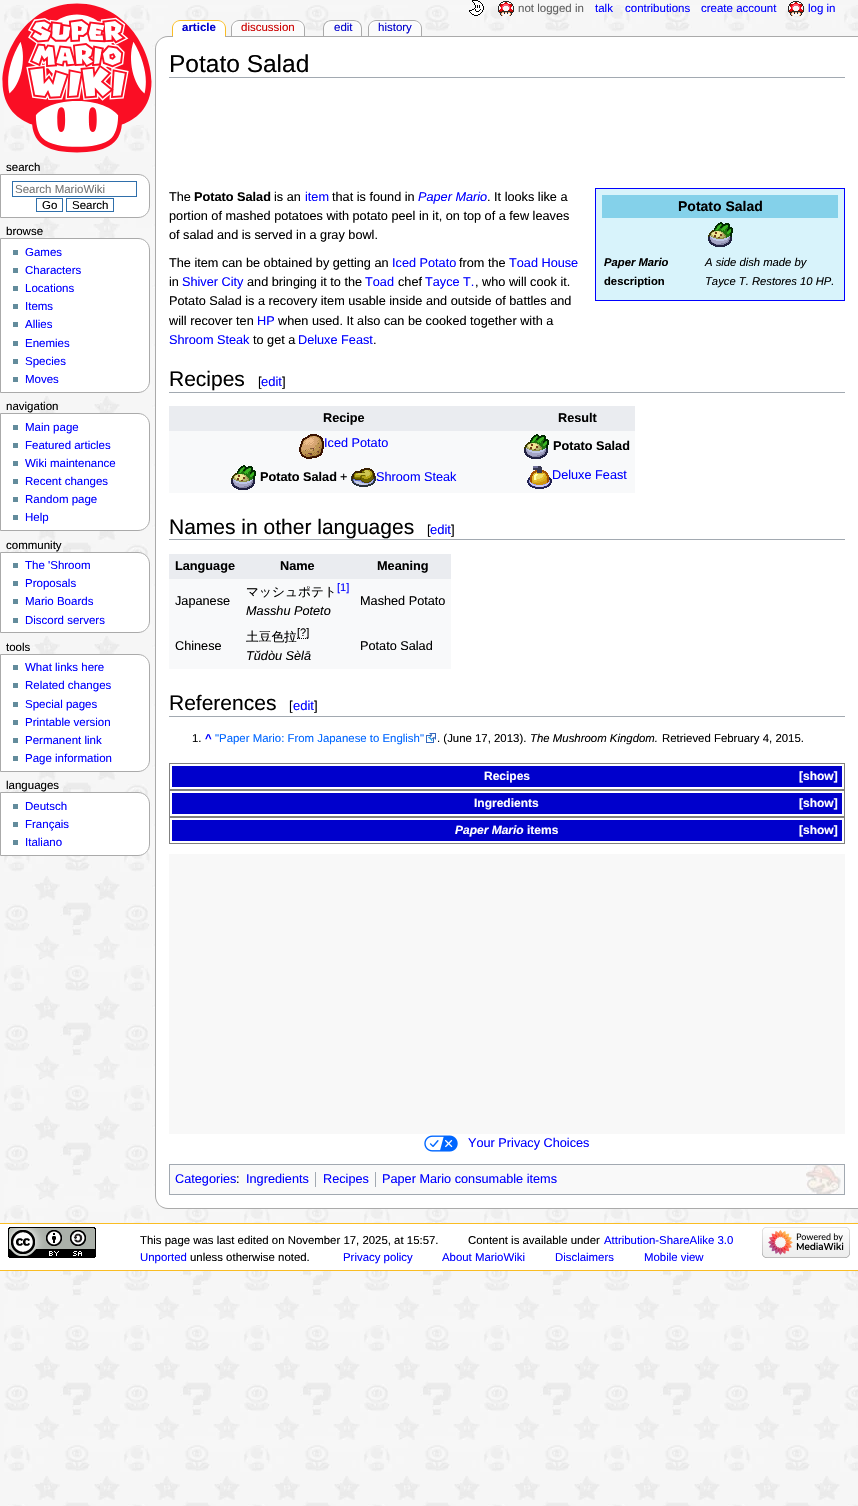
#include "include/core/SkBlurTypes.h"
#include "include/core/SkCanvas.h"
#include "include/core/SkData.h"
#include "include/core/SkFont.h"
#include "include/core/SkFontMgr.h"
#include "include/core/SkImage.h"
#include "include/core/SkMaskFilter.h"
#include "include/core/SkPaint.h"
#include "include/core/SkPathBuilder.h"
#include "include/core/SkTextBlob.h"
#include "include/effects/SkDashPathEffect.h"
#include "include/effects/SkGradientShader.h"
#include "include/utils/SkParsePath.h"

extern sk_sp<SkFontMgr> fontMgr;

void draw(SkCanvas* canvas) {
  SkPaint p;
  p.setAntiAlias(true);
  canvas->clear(SkColorSetRGB(246, 246, 246));
  canvas->drawImageRect(SkImages::DeferredFromEncodedData(SkData::MakeFromFileName("images/1.png")), SkRect::MakeLTRB(4, 5, 858, 1506), SkSamplingOptions());
  canvas->drawImageRect(SkImages::DeferredFromEncodedData(SkData::MakeFromFileName("images/2.png")), SkRect::MakeLTRB(2, 3, 152, 153), SkSamplingOptions());
  canvas->drawImageRect(SkImages::DeferredFromEncodedData(SkData::MakeFromFileName("images/3.png")), SkRect::MakeLTRB(469, 0, 484, 16), SkSamplingOptions());
  canvas->drawImageRect(SkImages::DeferredFromEncodedData(SkData::MakeFromFileName("images/4.png")), SkRect::MakeLTRB(498, 1, 514, 16), SkSamplingOptions());
  canvas->drawImageRect(SkImages::DeferredFromEncodedData(SkData::MakeFromFileName("images/5.png")), SkRect::MakeLTRB(788, 1, 804, 16), SkSamplingOptions());
  p.setColor(SK_ColorWHITE);
  canvas->drawPath(SkPathBuilder().moveTo(180, 20).lineTo(218, 20).cubicTo(222.5f, 20, 226, 23.5f, 226, 28).lineTo(226, 45).lineTo(172, 45).lineTo(172, 28).cubicTo(172, 23.5f, 175.5f, 20, 180, 20).close().detach(), p);
  p.setColor(SkColorSetRGB(250, 189, 35));
  canvas->drawPath(SkPathBuilder(SkPathFillType::kEvenOdd).moveTo(180, 20).lineTo(218, 20).cubicTo(222, 20, 226, 24, 226, 28).lineTo(226, 45).lineTo(172, 45).lineTo(172, 28).cubicTo(172, 24, 176, 20, 180, 20).close().moveTo(180, 21).lineTo(218, 21).cubicTo(222, 21, 225, 24, 225, 28).lineTo(225, 45).lineTo(173, 45).lineTo(173, 28).cubicTo(173, 24, 176, 21, 180, 21).close().detach(), p);
  p.setColor(SK_ColorWHITE);
  canvas->drawPath(SkPathBuilder().moveTo(239, 20).lineTo(297, 20).cubicTo(301.5f, 20, 305, 23.5f, 305, 28).lineTo(305, 45).lineTo(231, 45).lineTo(231, 28).cubicTo(231, 23.5f, 234.5f, 20, 239, 20).close().detach(), p);
  p.setColor(SkColorSetRGB(170, 170, 170));
  canvas->drawPath(SkPathBuilder(SkPathFillType::kEvenOdd).moveTo(239, 20).lineTo(297, 20).cubicTo(301, 20, 305, 24, 305, 28).lineTo(305, 45).lineTo(231, 45).lineTo(231, 28).cubicTo(231, 24, 235, 20, 239, 20).close().moveTo(239, 21).lineTo(297, 21).cubicTo(301, 21, 304, 24, 304, 28).lineTo(304, 45).lineTo(232, 45).lineTo(232, 28).cubicTo(232, 24, 235, 21, 239, 21).close().detach(), p);
  p.setColor(SkColorSetRGB(251, 251, 251));
  canvas->drawPath(SkPathBuilder().moveTo(243, 21).lineTo(293, 21).cubicTo(299, 21, 304, 26, 304, 32).lineTo(304, 37).lineTo(232, 37).lineTo(232, 32).cubicTo(232, 26, 237, 21, 243, 21).close().detach(), p);
  p.setColor(SK_ColorWHITE);
  canvas->drawPath(SkPathBuilder().moveTo(331, 20).lineTo(354, 20).cubicTo(358.5f, 20, 362, 23.5f, 362, 28).lineTo(362, 45).lineTo(323, 45).lineTo(323, 28).cubicTo(323, 23.5f, 326.5f, 20, 331, 20).close().detach(), p);
  p.setColor(SkColorSetRGB(170, 170, 170));
  canvas->drawPath(SkPathBuilder(SkPathFillType::kEvenOdd).moveTo(331.5f, 20).lineTo(353.5f, 20).cubicTo(358.5f, 20, 362, 23.5f, 362, 28.5f).lineTo(362, 45).lineTo(323, 45).lineTo(323, 28.5f).cubicTo(323, 23.5f, 326.5f, 20, 331.5f, 20).close().moveTo(331.5f, 21).lineTo(353.5f, 21).cubicTo(358, 21, 361, 24, 361, 28.5f).lineTo(361, 45).lineTo(324, 45).lineTo(324, 28.5f).cubicTo(324, 24, 327, 21, 331.5f, 21).close().detach(), p);
  p.setColor(SkColorSetRGB(251, 251, 251));
  canvas->drawPath(SkPathBuilder().moveTo(335, 21).lineTo(350, 21).cubicTo(356, 21, 361, 26, 361, 32).lineTo(361, 37).lineTo(324, 37).lineTo(324, 32).cubicTo(324, 26, 329, 21, 335, 21).close().detach(), p);
  p.setColor(SK_ColorWHITE);
  canvas->drawPath(SkPathBuilder().moveTo(376, 20).lineTo(414, 20).cubicTo(418.5f, 20, 422, 23.5f, 422, 28).lineTo(422, 45).lineTo(368, 45).lineTo(368, 28).cubicTo(368, 23.5f, 371.5f, 20, 376, 20).close().detach(), p);
  p.setColor(SkColorSetRGB(170, 170, 170));
  canvas->drawPath(SkPathBuilder(SkPathFillType::kEvenOdd).moveTo(376, 20).lineTo(414, 20).cubicTo(418, 20, 422, 24, 422, 28).lineTo(422, 45).lineTo(368, 45).lineTo(368, 28).cubicTo(368, 24, 372, 20, 376, 20).close().moveTo(376, 21).lineTo(414, 21).cubicTo(418, 21, 421, 24, 421, 28).lineTo(421, 45).lineTo(369, 45).lineTo(369, 28).cubicTo(369, 24, 372, 21, 376, 21).close().detach(), p);
  p.setColor(SkColorSetRGB(251, 251, 251));
  canvas->drawPath(SkPathBuilder().moveTo(380, 21).lineTo(410, 21).cubicTo(416, 21, 421, 26, 421, 32).lineTo(421, 37).lineTo(369, 37).lineTo(369, 32).cubicTo(369, 26, 374, 21, 380, 21).close().detach(), p);
  p.setColor(SK_ColorWHITE);
  canvas->drawPath(SkPathBuilder().moveTo(168, 36).lineTo(858, 36).lineTo(858, 1209).lineTo(168, 1209).cubicTo(161, 1209, 155, 1203, 155, 1196).lineTo(155, 49).cubicTo(155, 42, 161, 36, 168, 36).close().detach(), p);
  p.setColor(SkColorSetRGB(170, 170, 170));
  canvas->drawPath(SkPathBuilder(SkPathFillType::kEvenOdd).moveTo(168, 36).lineTo(858, 36).lineTo(858, 1209).lineTo(168, 1209).cubicTo(161, 1209, 155, 1203, 155, 1196).lineTo(155, 49).cubicTo(155, 42, 161, 36, 168, 36).close().moveTo(168, 37).lineTo(858, 37).lineTo(858, 1208).lineTo(168, 1208).cubicTo(161, 1208, 156, 1203, 156, 1196).lineTo(156, 49).cubicTo(156, 42, 161, 37, 168, 37).close().detach(), p);
  p.setColor(SK_ColorWHITE);
  canvas->drawPath(SkPathBuilder().moveTo(184, 21).lineTo(214, 21).cubicTo(220, 21, 225, 26, 225, 32).lineTo(225, 37).lineTo(173, 37).lineTo(173, 32).cubicTo(173, 26, 178, 21, 184, 21).close().detach(), p);
  canvas->drawPath(SkPathBuilder().moveTo(0.5f, 174.5f).lineTo(138, 174.5f).cubicTo(144.5f, 174.5f, 149.5f, 179.5f, 149.5f, 186).lineTo(149.5f, 206).cubicTo(149.5f, 212.5f, 144.5f, 217.5f, 138, 217.5f).lineTo(0.5f, 217.5f).close().detach(), p);
  p.setStyle(SkPaint::kStroke_Style);
  p.setStrokeWidth(1);
  p.setColor(SkColorSetRGB(170, 170, 170));
  canvas->drawPath(SkPathBuilder().moveTo(0.5f, 174.5f).lineTo(138, 174.5f).cubicTo(144.5f, 174.5f, 149.5f, 179.5f, 149.5f, 186).lineTo(149.5f, 206).cubicTo(149.5f, 212.5f, 144.5f, 217.5f, 138, 217.5f).lineTo(0.5f, 217.5f).close().detach(), p);
  p.setColor(SkColorSetRGB(47, 111, 171));
  canvas->drawRect(SkRect::MakeLTRB(12.5f, 181.5f, 136.5f, 196.5f), p);
  canvas->drawRect(SkRect::MakeLTRB(36.5f, 198.5f, 62.5f, 211.5f), p);
  canvas->drawRect(SkRect::MakeLTRB(66.5f, 198.5f, 113.5f, 211.5f), p);
  p.setStyle(SkPaint::kFill_Style);
  p.setColor(SK_ColorWHITE);
  canvas->drawPath(SkPathBuilder().moveTo(0.5f, 238.5f).lineTo(138, 238.5f).cubicTo(144.5f, 238.5f, 149.5f, 243.5f, 149.5f, 250).lineTo(149.5f, 381).cubicTo(149.5f, 387.5f, 144.5f, 392.5f, 138, 392.5f).lineTo(0.5f, 392.5f).close().detach(), p);
  p.setStyle(SkPaint::kStroke_Style);
  p.setColor(SkColorSetRGB(170, 170, 170));
  canvas->drawPath(SkPathBuilder().moveTo(0.5f, 238.5f).lineTo(138, 238.5f).cubicTo(144.5f, 238.5f, 149.5f, 243.5f, 149.5f, 250).lineTo(149.5f, 381).cubicTo(149.5f, 387.5f, 144.5f, 392.5f, 138, 392.5f).lineTo(0.5f, 392.5f).close().detach(), p);
  p.setStyle(SkPaint::kFill_Style);
  p.setColor(SkColorSetRGB(99, 140, 156));
  canvas->drawRect(SkRect::MakeLTRB(13, 250, 18, 255), p);
  canvas->drawRect(SkRect::MakeLTRB(13, 268, 18, 273), p);
  canvas->drawRect(SkRect::MakeLTRB(13, 286, 18, 291), p);
  canvas->drawRect(SkRect::MakeLTRB(13, 304, 18, 309), p);
  canvas->drawRect(SkRect::MakeLTRB(13, 322, 18, 327), p);
  canvas->drawRect(SkRect::MakeLTRB(13, 341, 18, 346), p);
  canvas->drawRect(SkRect::MakeLTRB(13, 359, 18, 364), p);
  canvas->drawRect(SkRect::MakeLTRB(13, 377, 18, 382), p);
  p.setColor(SK_ColorWHITE);
  canvas->drawPath(SkPathBuilder().moveTo(0.5f, 413.5f).lineTo(138, 413.5f).cubicTo(144.5f, 413.5f, 149.5f, 418.5f, 149.5f, 425).lineTo(149.5f, 519).cubicTo(149.5f, 525.5f, 144.5f, 530.5f, 138, 530.5f).lineTo(0.5f, 530.5f).close().detach(), p);
  p.setStyle(SkPaint::kStroke_Style);
  p.setColor(SkColorSetRGB(170, 170, 170));
  canvas->drawPath(SkPathBuilder().moveTo(0.5f, 413.5f).lineTo(138, 413.5f).cubicTo(144.5f, 413.5f, 149.5f, 418.5f, 149.5f, 425).lineTo(149.5f, 519).cubicTo(149.5f, 525.5f, 144.5f, 530.5f, 138, 530.5f).lineTo(0.5f, 530.5f).close().detach(), p);
  p.setStyle(SkPaint::kFill_Style);
  p.setColor(SkColorSetRGB(99, 140, 156));
  canvas->drawRect(SkRect::MakeLTRB(13, 425, 18, 430), p);
  canvas->drawRect(SkRect::MakeLTRB(13, 443, 18, 448), p);
  canvas->drawRect(SkRect::MakeLTRB(13, 461, 18, 466), p);
  canvas->drawRect(SkRect::MakeLTRB(13, 479, 18, 484), p);
  canvas->drawRect(SkRect::MakeLTRB(13, 497, 18, 502), p);
  canvas->drawRect(SkRect::MakeLTRB(13, 515, 18, 520), p);
  p.setColor(SK_ColorWHITE);
  canvas->drawPath(SkPathBuilder().moveTo(0.5f, 552.5f).lineTo(138, 552.5f).cubicTo(144.5f, 552.5f, 149.5f, 557.5f, 149.5f, 564).lineTo(149.5f, 621).cubicTo(149.5f, 627.5f, 144.5f, 632.5f, 138, 632.5f).lineTo(0.5f, 632.5f).close().detach(), p);
  p.setStyle(SkPaint::kStroke_Style);
  p.setColor(SkColorSetRGB(170, 170, 170));
  canvas->drawPath(SkPathBuilder().moveTo(0.5f, 552.5f).lineTo(138, 552.5f).cubicTo(144.5f, 552.5f, 149.5f, 557.5f, 149.5f, 564).lineTo(149.5f, 621).cubicTo(149.5f, 627.5f, 144.5f, 632.5f, 138, 632.5f).lineTo(0.5f, 632.5f).close().detach(), p);
  p.setStyle(SkPaint::kFill_Style);
  p.setColor(SkColorSetRGB(99, 140, 156));
  canvas->drawRect(SkRect::MakeLTRB(13, 563, 18, 568), p);
  canvas->drawRect(SkRect::MakeLTRB(13, 581, 18, 586), p);
  canvas->drawRect(SkRect::MakeLTRB(13, 599, 18, 604), p);
  canvas->drawRect(SkRect::MakeLTRB(13, 618, 18, 623), p);
  p.setColor(SK_ColorWHITE);
  canvas->drawPath(SkPathBuilder().moveTo(0.5f, 654.5f).lineTo(138, 654.5f).cubicTo(144.5f, 654.5f, 149.5f, 659.5f, 149.5f, 666).lineTo(149.5f, 760).cubicTo(149.5f, 766.5f, 144.5f, 771.5f, 138, 771.5f).lineTo(0.5f, 771.5f).close().detach(), p);
  p.setStyle(SkPaint::kStroke_Style);
  p.setColor(SkColorSetRGB(170, 170, 170));
  canvas->drawPath(SkPathBuilder().moveTo(0.5f, 654.5f).lineTo(138, 654.5f).cubicTo(144.5f, 654.5f, 149.5f, 659.5f, 149.5f, 666).lineTo(149.5f, 760).cubicTo(149.5f, 766.5f, 144.5f, 771.5f, 138, 771.5f).lineTo(0.5f, 771.5f).close().detach(), p);
  p.setStyle(SkPaint::kFill_Style);
  p.setColor(SkColorSetRGB(99, 140, 156));
  canvas->drawRect(SkRect::MakeLTRB(13, 665, 18, 670), p);
  canvas->drawRect(SkRect::MakeLTRB(13, 683, 18, 688), p);
  canvas->drawRect(SkRect::MakeLTRB(13, 702, 18, 707), p);
  canvas->drawRect(SkRect::MakeLTRB(13, 720, 18, 725), p);
  canvas->drawRect(SkRect::MakeLTRB(13, 738, 18, 743), p);
  canvas->drawRect(SkRect::MakeLTRB(13, 756, 18, 761), p);
  p.setColor(SK_ColorWHITE);
  canvas->drawPath(SkPathBuilder().moveTo(0.5f, 792.5f).lineTo(138, 792.5f).cubicTo(144.5f, 792.5f, 149.5f, 797.5f, 149.5f, 804).lineTo(149.5f, 844).cubicTo(149.5f, 850.5f, 144.5f, 855.5f, 138, 855.5f).lineTo(0.5f, 855.5f).close().detach(), p);
  p.setStyle(SkPaint::kStroke_Style);
  p.setColor(SkColorSetRGB(170, 170, 170));
  canvas->drawPath(SkPathBuilder().moveTo(0.5f, 792.5f).lineTo(138, 792.5f).cubicTo(144.5f, 792.5f, 149.5f, 797.5f, 149.5f, 804).lineTo(149.5f, 844).cubicTo(149.5f, 850.5f, 144.5f, 855.5f, 138, 855.5f).lineTo(0.5f, 855.5f).close().detach(), p);
  p.setStyle(SkPaint::kFill_Style);
  p.setColor(SkColorSetRGB(99, 140, 156));
  canvas->drawRect(SkRect::MakeLTRB(13, 804, 18, 809), p);
  canvas->drawRect(SkRect::MakeLTRB(13, 822, 18, 827), p);
  canvas->drawRect(SkRect::MakeLTRB(13, 840, 18, 845), p);
  p.setColor(SkColorSetRGB(162, 169, 177));
  canvas->drawRect(SkRect::MakeLTRB(169, 77, 845, 78), p);
  p.setColor(SkColorSetRGB(216, 243, 251));
  canvas->drawRect(SkRect::MakeLTRB(595.5f, 188.5f, 844.5f, 300.5f), p);
  p.setStyle(SkPaint::kStroke_Style);
  p.setColor(SkColorSetRGB(0, 0, 255));
  canvas->drawRect(SkRect::MakeLTRB(595.5f, 188.5f, 844.5f, 300.5f), p);
  p.setStyle(SkPaint::kFill_Style);
  p.setColor(SkColorSetRGB(132, 209, 234));
  canvas->drawRect(SkRect::MakeLTRB(602, 195, 838, 218), p);
  canvas->drawImageRect(SkImages::DeferredFromEncodedData(SkData::MakeFromFileName("images/6.png")), SkRect::MakeLTRB(708, 222, 733, 247), SkSamplingOptions());
  p.setColor(SkColorSetRGB(162, 169, 177));
  canvas->drawRect(SkRect::MakeLTRB(169, 392, 845, 393), p);
  p.setColor(SkColorSetRGB(234, 236, 240));
  canvas->drawRect(SkRect::MakeLTRB(169, 406, 635, 431), p);
  p.setColor(SkColorSetRGB(248, 249, 250));
  canvas->drawRect(SkRect::MakeLTRB(169, 431, 635, 493), p);
  canvas->drawImageRect(SkImages::DeferredFromEncodedData(SkData::MakeFromFileName("images/7.png")), SkRect::MakeLTRB(299, 434, 324, 459), SkSamplingOptions());
  canvas->drawImageRect(SkImages::DeferredFromEncodedData(SkData::MakeFromFileName("images/8.png")), SkRect::MakeLTRB(524, 434, 549, 459), SkSamplingOptions());
  canvas->drawImageRect(SkImages::DeferredFromEncodedData(SkData::MakeFromFileName("images/8.png")), SkRect::MakeLTRB(231, 465, 256, 490), SkSamplingOptions());
  canvas->drawImageRect(SkImages::DeferredFromEncodedData(SkData::MakeFromFileName("images/9.png")), SkRect::MakeLTRB(351, 468, 376, 487), SkSamplingOptions());
  canvas->drawImageRect(SkImages::DeferredFromEncodedData(SkData::MakeFromFileName("images/10.png")), SkRect::MakeLTRB(527, 466, 552, 489), SkSamplingOptions());
  p.setColor(SkColorSetRGB(162, 169, 177));
  canvas->drawRect(SkRect::MakeLTRB(169, 539, 845, 540), p);
  p.setColor(SkColorSetRGB(234, 236, 240));
  canvas->drawRect(SkRect::MakeLTRB(169, 554, 451, 579), p);
  p.setColor(SkColorSetRGB(248, 249, 250));
  canvas->drawRect(SkRect::MakeLTRB(169, 579, 451, 669), p);
  p.setStyle(SkPaint::kStroke_Style);
  p.setColor(SK_ColorBLACK);
  p.setPathEffect(SkDashPathEffect::Make({{1, 1}}, 0));
  canvas->drawPath(SkPathBuilder().moveTo(297, 638.5f).lineTo(308, 638.5f).detach(), p);
  p.setPathEffect(nullptr);
  p.setStyle(SkPaint::kFill_Style);
  p.setColor(SkColorSetRGB(162, 169, 177));
  canvas->drawRect(SkRect::MakeLTRB(169, 716, 845, 717), p);
  canvas->drawImageRect(SkImages::DeferredFromEncodedData(SkData::MakeFromFileName("images/11.png")), SkRect::MakeLTRB(426, 733, 436, 743), SkSamplingOptions());
  p.setStyle(SkPaint::kStroke_Style);
  p.setColor(SkColorSetRGB(128, 128, 128));
  canvas->drawRect(SkRect::MakeLTRB(169.5f, 763.5f, 844.5f, 789.5f), p);
  p.setStyle(SkPaint::kFill_Style);
  p.setColor(SkColorSetRGB(0, 0, 204));
  canvas->drawRect(SkRect::MakeLTRB(172, 766, 842, 787), p);
  p.setStyle(SkPaint::kStroke_Style);
  p.setColor(SkColorSetRGB(128, 128, 128));
  canvas->drawRect(SkRect::MakeLTRB(169.5f, 790.5f, 844.5f, 816.5f), p);
  p.setStyle(SkPaint::kFill_Style);
  p.setColor(SkColorSetRGB(0, 0, 204));
  canvas->drawRect(SkRect::MakeLTRB(172, 793, 842, 814), p);
  p.setStyle(SkPaint::kStroke_Style);
  p.setColor(SkColorSetRGB(128, 128, 128));
  canvas->drawRect(SkRect::MakeLTRB(169.5f, 817.5f, 844.5f, 843.5f), p);
  p.setStyle(SkPaint::kFill_Style);
  p.setColor(SkColorSetRGB(0, 0, 204));
  canvas->drawRect(SkRect::MakeLTRB(172, 820, 842, 841), p);
  p.setColor(SkColorSetRGB(248, 248, 248));
  canvas->drawRect(SkRect::MakeLTRB(169, 854, 845, 1134), p);
  canvas->drawImageRect(SkImages::DeferredFromEncodedData(SkData::MakeFromFileName("images/12.png")), SkRect::MakeLTRB(424, 1135, 458, 1152), SkSamplingOptions());
  p.setColor(SkColorSetRGB(249, 249, 249));
  canvas->drawRect(SkRect::MakeLTRB(170, 1165, 844, 1194), p);
  canvas->drawImageRect(SkImages::DeferredFromEncodedData(SkData::MakeFromFileName("images/13.png")), SkRect::MakeLTRB(806, 1165, 841, 1194), SkSamplingOptions());
  p.setStyle(SkPaint::kStroke_Style);
  p.setColor(SkColorSetRGB(162, 169, 177));
  canvas->drawRect(SkRect::MakeLTRB(169.5f, 1164.5f, 844.5f, 1194.5f), p);
  p.setStyle(SkPaint::kFill_Style);
  canvas->drawRect(SkRect::MakeLTRB(315, 1172, 316, 1187), p);
  canvas->drawRect(SkRect::MakeLTRB(375, 1172, 376, 1187), p);
  p.setColor(SK_ColorWHITE);
  canvas->drawRect(SkRect::MakeLTRB(0, 1224, 858, 1270), p);
  p.setColor(SkColorSetRGB(250, 189, 35));
  canvas->drawRect(SkRect::MakeLTRB(0, 1223, 858, 1224), p);
  canvas->drawRect(SkRect::MakeLTRB(0, 1270, 858, 1271), p);
  canvas->drawImageRect(SkImages::DeferredFromEncodedData(SkData::MakeFromFileName("images/14.png")), SkRect::MakeLTRB(8, 1227, 96, 1258), SkSamplingOptions());
  canvas->drawImageRect(SkImages::DeferredFromEncodedData(SkData::MakeFromFileName("images/15.png")), SkRect::MakeLTRB(762, 1227, 850, 1258), SkSamplingOptions());
  SkFont font1(fontMgr->matchFamilyStyle("Liberation Sans", SkFontStyle::Normal()), 11.5f);
  font1.setSubpixel(true);
  p.setColor(SkColorSetRGB(96, 96, 96));
  canvas->drawString("not logged in", 518, 12, font1, p);
  p.setColor(SkColorSetRGB(0, 0, 255));
  canvas->drawString("talk", 595, 12, font1, p);
  canvas->drawString("contributions", 625, 12, font1, p);
  canvas->drawString("create account", 701, 12, font1, p);
  canvas->drawString("log in", 808, 12, font1, p);
  SkFont font2(fontMgr->matchFamilyStyle("Liberation Sans", SkFontStyle::Bold()), 11.5f);
  font2.setSubpixel(true);
  p.setColor(SkColorSetRGB(0, 0, 204));
  canvas->drawString("article", 182, 31, font2, p);
  p.setColor(SkColorSetRGB(204, 0, 0));
  canvas->drawString("discussion", 241, 31, font1, p);
  p.setColor(SkColorSetRGB(0, 0, 204));
  canvas->drawString("edit", 334, 31, font1, p);
  canvas->drawString("history", 378, 31, font1, p);
  p.setColor(SK_ColorBLACK);
  canvas->drawString("search", 6, 171, font1, p);
  p.setColor(SkColorSetRGB(117, 117, 117));
  canvas->drawString("Search MarioWiki", 15, 193, font1, p);
  p.setColor(SK_ColorBLACK);
  canvas->drawString("Go", 42, 209, font1, p);
  canvas->drawString("Search", 72, 209, font1, p);
  canvas->drawString("browse", 6, 235, font1, p);
  p.setColor(SkColorSetRGB(0, 0, 255));
  canvas->drawString("Games", 25, 256, font1, p);
  canvas->drawString("Characters", 25, 274, font1, p);
  canvas->drawString("Locations", 25, 292, font1, p);
  canvas->drawString("Items", 25, 310, font1, p);
  canvas->drawString("Allies", 25, 328, font1, p);
  canvas->drawString("Enemies", 25, 347, font1, p);
  canvas->drawString("Species", 25, 365, font1, p);
  canvas->drawString("Moves", 25, 383, font1, p);
  p.setColor(SK_ColorBLACK);
  canvas->drawString("navigation", 6, 410, font1, p);
  p.setColor(SkColorSetRGB(0, 0, 255));
  canvas->drawString("Main page", 25, 431, font1, p);
  canvas->drawString("Featured articles", 25, 449, font1, p);
  canvas->drawString("Wiki maintenance", 25, 467, font1, p);
  canvas->drawString("Recent changes", 25, 485, font1, p);
  canvas->drawString("Random page", 25, 503, font1, p);
  canvas->drawString("Help", 25, 521, font1, p);
  p.setColor(SK_ColorBLACK);
  canvas->drawString("community", 6, 549, font1, p);
  p.setColor(SkColorSetRGB(0, 0, 255));
  canvas->drawString("The 'Shroom", 25, 569, font1, p);
  canvas->drawString("Proposals", 25, 587, font1, p);
  canvas->drawString("Mario Boards", 25, 605, font1, p);
  canvas->drawString("Discord servers", 25, 624, font1, p);
  p.setColor(SK_ColorBLACK);
  canvas->drawString("tools", 6, 651, font1, p);
  p.setColor(SkColorSetRGB(0, 0, 255));
  canvas->drawString("What links here", 25, 671, font1, p);
  canvas->drawString("Related changes", 25, 689, font1, p);
  canvas->drawString("Special pages", 25, 708, font1, p);
  canvas->drawString("Printable version", 25, 726, font1, p);
  canvas->drawString("Permanent link", 25, 744, font1, p);
  canvas->drawString("Page information", 25, 762, font1, p);
  p.setColor(SK_ColorBLACK);
  canvas->drawString("languages", 6, 789, font1, p);
  p.setColor(SkColorSetRGB(0, 0, 255));
  canvas->drawString("Deutsch", 25, 810, font1, p);
  canvas->drawString("Français", 25, 828, font1, p);
  canvas->drawString("Italiano", 25, 846, font1, p);
  SkFont font3(fontMgr->matchFamilyStyle("Liberation Sans", SkFontStyle::Normal()), 24.5f);
  font3.setSubpixel(true);
  p.setColor(SK_ColorBLACK);
  canvas->drawString("Potato Salad", 169, 72, font3, p);
  SkFont font4(fontMgr->matchFamilyStyle("Liberation Sans", SkFontStyle::Normal()), 12.7f);
  font4.setSubpixel(true);
  canvas->drawString("The", 169, 201, font4, p);
  SkFont font5(fontMgr->matchFamilyStyle("Liberation Sans", SkFontStyle::Bold()), 12.7f);
  font5.setSubpixel(true);
  canvas->drawString("Potato Salad", 194, 201, font5, p);
  canvas->drawString("is an", 274, 201, font4, p);
  p.setColor(SkColorSetRGB(0, 0, 255));
  canvas->drawString("item", 305, 201, font4, p);
  p.setColor(SK_ColorBLACK);
  canvas->drawString("that is found in", 332, 201, font4, p);
  SkFont font6(fontMgr->matchFamilyStyle("Liberation Sans", SkFontStyle::Italic()), 12.7f);
  font6.setSubpixel(true);
  p.setColor(SkColorSetRGB(0, 0, 255));
  canvas->drawString("Paper Mario", 418, 201, font6, p);
  p.setColor(SK_ColorBLACK);
  canvas->drawString(". It looks like a", 487, 201, font4, p);
  canvas->drawString("portion of mashed potatoes with potato peel in it, on top of a few leaves", 169, 220, font4, p);
  canvas->drawString("of salad and is served in a gray bowl.", 169, 239, font4, p);
  SkFont font7(fontMgr->matchFamilyStyle("Liberation Sans", SkFontStyle::Bold()), 14);
  font7.setSubpixel(true);
  canvas->drawString("Potato Salad", 678, 211, font7, p);
  SkFont font8(fontMgr->matchFamilyStyle("Liberation Sans", SkFontStyle::BoldItalic()), 11.25f);
  font8.setSubpixel(true);
  canvas->drawString("Paper Mario", 604, 266, font8, p);
  SkFont font9(fontMgr->matchFamilyStyle("Liberation Sans", SkFontStyle::Bold()), 11.25f);
  font9.setSubpixel(true);
  canvas->drawString("description", 604, 285, font9, p);
  SkFont font10(fontMgr->matchFamilyStyle("Liberation Sans", SkFontStyle::Italic()), 11.25f);
  font10.setSubpixel(true);
  canvas->drawString("A side dish made by", 705, 266, font10, p);
  canvas->drawString("Tayce T. Restores 10 HP.", 705, 285, font10, p);
  canvas->drawString("The item can be obtained by getting an", 169, 267, font4, p);
  p.setColor(SkColorSetRGB(0, 0, 255));
  canvas->drawString("Iced Potato", 392, 267, font4, p);
  p.setColor(SK_ColorBLACK);
  canvas->drawString("from the", 459, 267, font4, p);
  p.setColor(SkColorSetRGB(0, 0, 255));
  canvas->drawString("Toad House", 509, 267, font4, p);
  p.setColor(SK_ColorBLACK);
  canvas->drawString("in", 169, 286, font4, p);
  p.setColor(SkColorSetRGB(0, 0, 255));
  canvas->drawString("Shiver City", 182, 286, font4, p);
  p.setColor(SK_ColorBLACK);
  canvas->drawString("and bringing it to the", 247, 286, font4, p);
  p.setColor(SkColorSetRGB(0, 0, 255));
  canvas->drawString("Toad", 365, 286, font4, p);
  p.setColor(SK_ColorBLACK);
  canvas->drawString("chef", 398, 286, font4, p);
  p.setColor(SkColorSetRGB(0, 0, 255));
  canvas->drawString("Tayce T.", 425, 286, font4, p);
  p.setColor(SK_ColorBLACK);
  canvas->drawString(", who will cook it.", 475, 286, font4, p);
  canvas->drawString("Potato Salad is a recovery item usable inside and outside of battles and", 169, 305, font4, p);
  canvas->drawString("will recover ten", 169, 325, font4, p);
  p.setColor(SkColorSetRGB(0, 0, 255));
  canvas->drawString("HP", 257, 325, font4, p);
  p.setColor(SK_ColorBLACK);
  canvas->drawString("when used. It also can be cooked together with a", 278, 325, font4, p);
  p.setColor(SkColorSetRGB(0, 0, 255));
  canvas->drawString("Shroom Steak", 169, 344, font4, p);
  p.setColor(SK_ColorBLACK);
  canvas->drawString("to get a", 253, 344, font4, p);
  p.setColor(SkColorSetRGB(0, 0, 255));
  canvas->drawString("Deluxe Feast", 298, 344, font4, p);
  p.setColor(SK_ColorBLACK);
  canvas->drawString(".", 373, 344, font4, p);
  SkFont font11(fontMgr->matchFamilyStyle("Liberation Sans", SkFontStyle::Normal()), 21);
  font11.setSubpixel(true);
  canvas->drawString("Recipes", 169, 386, font11, p);
  SkFont font12(fontMgr->matchFamilyStyle("Liberation Sans", SkFontStyle::Normal()), 13);
  font12.setSubpixel(true);
  canvas->drawString("[", 258, 386, font12, p);
  p.setColor(SkColorSetRGB(0, 0, 255));
  canvas->drawString("edit", 261, 386, font12, p);
  p.setColor(SK_ColorBLACK);
  canvas->drawString("]", 282, 386, font12, p);
  canvas->drawString("Recipe", 323, 422, font5, p);
  canvas->drawString("Result", 558, 422, font5, p);
  p.setColor(SkColorSetRGB(0, 0, 255));
  canvas->drawString("Iced Potato", 324, 447, font4, p);
  p.setColor(SK_ColorBLACK);
  canvas->drawString("Potato Salad", 553, 450, font5, p);
  canvas->drawString("Potato Salad", 260, 481, font5, p);
  canvas->drawString("+", 340, 481, font4, p);
  p.setColor(SkColorSetRGB(0, 0, 255));
  canvas->drawString("Shroom Steak", 376, 481, font4, p);
  canvas->drawString("Deluxe Feast", 552, 479, font4, p);
  p.setColor(SK_ColorBLACK);
  canvas->drawString("Names in other languages", 169, 534, font11, p);
  canvas->drawString("[", 427, 534, font12, p);
  p.setColor(SkColorSetRGB(0, 0, 255));
  canvas->drawString("edit", 430, 534, font12, p);
  p.setColor(SK_ColorBLACK);
  canvas->drawString("]", 451, 534, font12, p);
  canvas->drawString("Language", 175, 570, font5, p);
  canvas->drawString("Name", 280, 570, font5, p);
  canvas->drawString("Meaning", 377, 570, font5, p);
  canvas->drawString("Japanese", 175, 605, font4, p);
  SkFont font13(fontMgr->matchFamilyStyle("WenQuanYi Zen Hei", SkFontStyle(500, SkFontStyle::kNormal_Width, SkFontStyle::kUpright_Slant)), 12.7f);
  font13.setSubpixel(true);
  canvas->drawString("マッシュポテト", 246, 596, font13, p);
  SkFont font14(fontMgr->matchFamilyStyle("Liberation Sans", SkFontStyle::Normal()), 11);
  font14.setSubpixel(true);
  p.setColor(SkColorSetRGB(0, 0, 255));
  canvas->drawString("[1]", 337, 591, font14, p);
  p.setColor(SK_ColorBLACK);
  canvas->drawString("Masshu Poteto", 246, 615, font6, p);
  canvas->drawString("Mashed Potato", 360, 605, font4, p);
  canvas->drawString("Chinese", 175, 650, font4, p);
  canvas->drawString("土豆色拉", 246, 641, font13, p);
  canvas->drawString("[?]", 297, 636, font14, p);
  canvas->drawString("Tǔdòu Sèlā", 246, 660, font6, p);
  canvas->drawString("Potato Salad", 360, 650, font4, p);
  canvas->drawString("References", 169, 710, font11, p);
  canvas->drawString("[", 289, 710, font12, p);
  p.setColor(SkColorSetRGB(0, 0, 255));
  canvas->drawString("edit", 293, 710, font12, p);
  p.setColor(SK_ColorBLACK);
  canvas->drawString("]", 314, 710, font12, p);
  SkFont font15(fontMgr->matchFamilyStyle("Liberation Sans", SkFontStyle::Normal()), 11.4f);
  font15.setSubpixel(true);
  canvas->drawString("1.", 192, 742, font15, p);
  SkFont font16(fontMgr->matchFamilyStyle("Liberation Sans", SkFontStyle::Bold()), 11.4f);
  font16.setSubpixel(true);
  p.setColor(SkColorSetRGB(0, 0, 255));
  canvas->drawString("^", 205, 742, font16, p);
  p.setColor(SkColorSetRGB(0, 102, 255));
  canvas->drawString("\"Paper Mario: From Japanese to English\"", 215, 742, font15, p);
  p.setColor(SK_ColorBLACK);
  canvas->drawString(". (June 17, 2013).", 437, 742, font15, p);
  SkFont font17(fontMgr->matchFamilyStyle("Liberation Sans", SkFontStyle::Italic()), 11.4f);
  font17.setSubpixel(true);
  canvas->drawString("The Mushroom Kingdom.", 530, 742, font17, p);
  canvas->drawString("Retrieved February 4, 2015.", 662, 742, font15, p);
  SkFont font18(fontMgr->matchFamilyStyle("Liberation Sans", SkFontStyle::Bold()), 12);
  font18.setSubpixel(true);
  p.setColor(SK_ColorWHITE);
  canvas->drawString("Recipes", 484, 780, font18, p);
  canvas->drawString("[show]", 799, 780, font18, p);
  canvas->drawString("Ingredients", 474, 807, font18, p);
  canvas->drawString("[show]", 799, 807, font18, p);
  SkFont font19(fontMgr->matchFamilyStyle("Liberation Sans", SkFontStyle::BoldItalic()), 12);
  font19.setSubpixel(true);
  canvas->drawString("Paper Mario", 455, 834, font19, p);
  canvas->drawString("items", 527, 834, font18, p);
  canvas->drawString("[show]", 799, 834, font18, p);
  p.setColor(SkColorSetRGB(0, 0, 255));
  canvas->drawString("Your Privacy Choices", 468, 1147, font4, p);
  canvas->drawString("Categories", 175, 1183, font4, p);
  p.setColor(SK_ColorBLACK);
  canvas->drawString(":", 236, 1183, font4, p);
  p.setColor(SkColorSetRGB(0, 0, 255));
  canvas->drawString("Ingredients", 246, 1183, font4, p);
  canvas->drawString("Recipes", 323, 1183, font4, p);
  canvas->drawString("Paper Mario consumable items", 382, 1183, font4, p);
  p.setColor(SK_ColorBLACK);
  canvas->drawString("This page was last edited on November 17, 2025, at 15:57.", 140, 1244, font15, p);
  canvas->drawString("Content is available under", 468, 1244, font15, p);
  p.setColor(SkColorSetRGB(0, 0, 255));
  canvas->drawString("Attribution-ShareAlike 3.0", 604, 1244, font15, p);
  canvas->drawString("Unported", 140, 1261, font15, p);
  p.setColor(SK_ColorBLACK);
  canvas->drawString("unless otherwise noted.", 190, 1261, font15, p);
  p.setColor(SkColorSetRGB(0, 0, 255));
  canvas->drawString("Privacy policy", 343, 1261, font15, p);
  canvas->drawString("About MarioWiki", 442, 1261, font15, p);
  canvas->drawString("Disclaimers", 555, 1261, font15, p);
  canvas->drawString("Mobile view", 644, 1261, font15, p);
}
